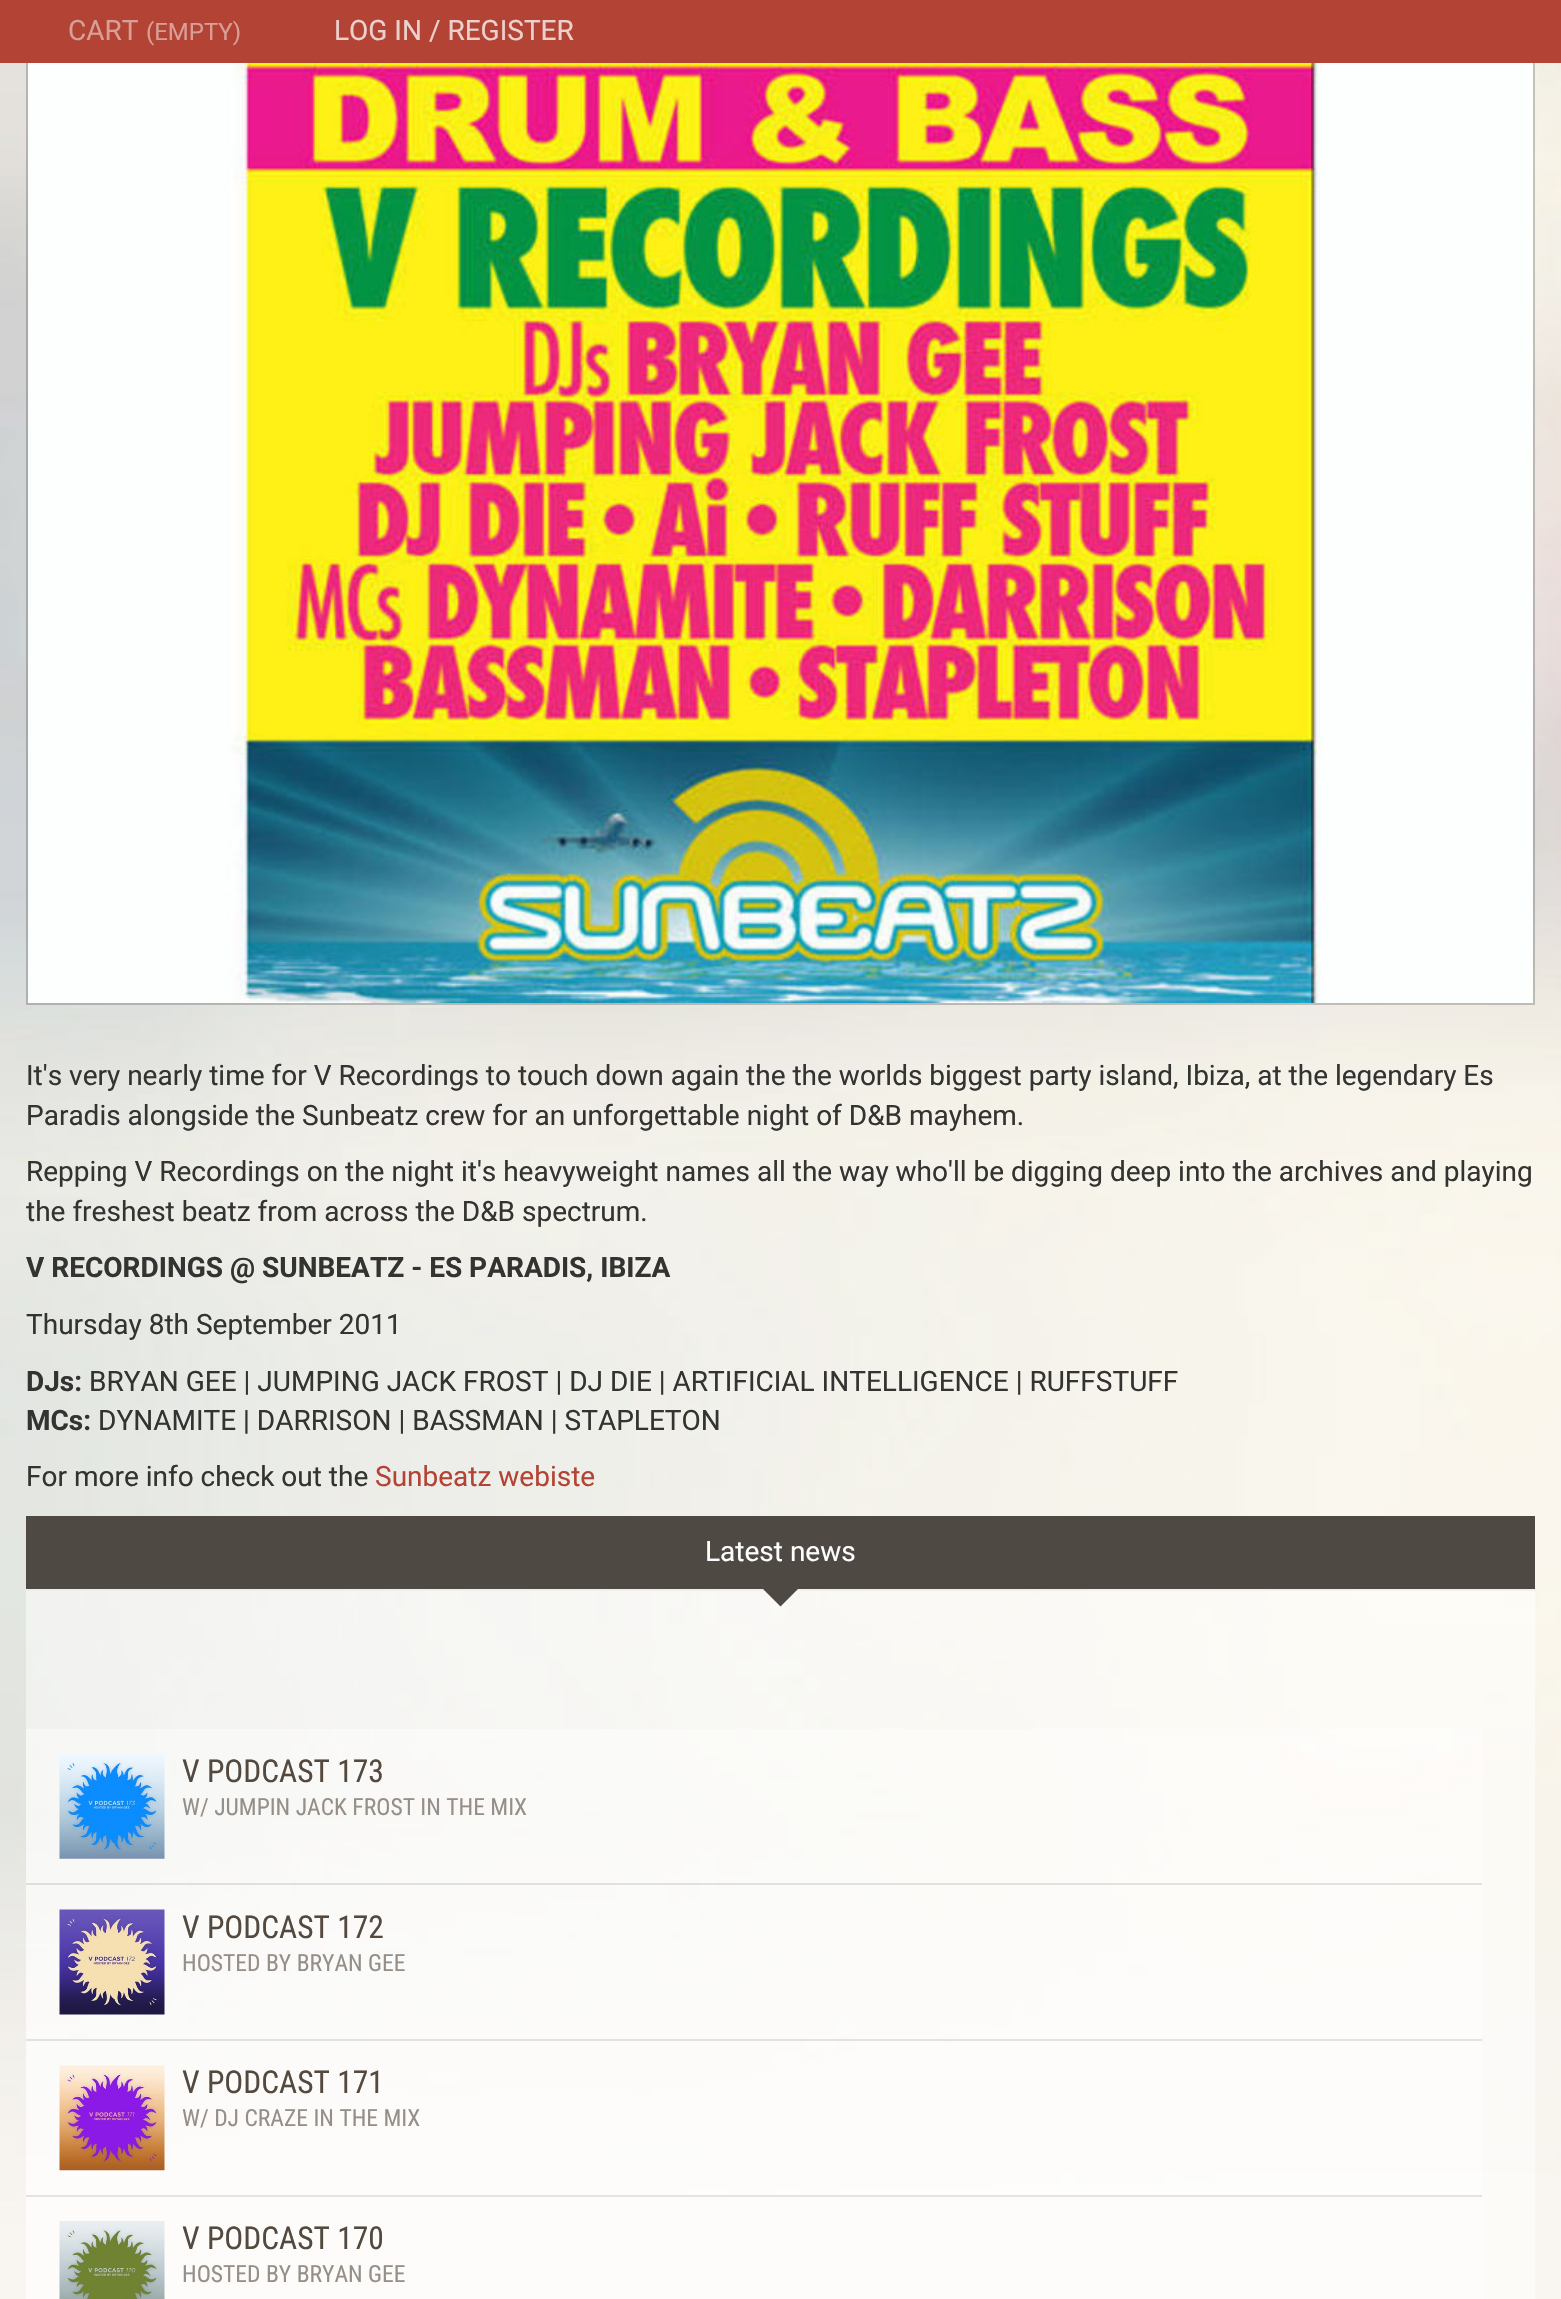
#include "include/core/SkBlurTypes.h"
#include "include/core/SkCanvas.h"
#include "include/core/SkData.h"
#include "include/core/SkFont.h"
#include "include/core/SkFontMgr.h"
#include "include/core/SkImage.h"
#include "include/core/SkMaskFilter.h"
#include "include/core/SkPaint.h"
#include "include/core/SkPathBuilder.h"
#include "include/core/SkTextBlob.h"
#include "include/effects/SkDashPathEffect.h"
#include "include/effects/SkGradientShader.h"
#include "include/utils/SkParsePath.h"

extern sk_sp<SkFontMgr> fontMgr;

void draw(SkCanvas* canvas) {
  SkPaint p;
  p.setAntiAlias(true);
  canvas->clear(SK_ColorWHITE);
  canvas->drawImageRect(SkImages::DeferredFromEncodedData(SkData::MakeFromFileName("images/1.png")), SkRect::MakeLTRB(0, 63, 1561, 2299), SkSamplingOptions());
  p.setColor(SkColorSetRGB(179, 67, 52));
  canvas->drawRect(SkRect::MakeLTRB(0, 0, 1561, 63), p);
  p.setColor(SkColorSetARGB(51, 0, 0, 0));
  canvas->drawRect(SkRect::MakeLTRB(26, 63, 1535, 1005), p);
  canvas->drawImageRect(SkImages::DeferredFromEncodedData(SkData::MakeFromFileName("images/2.png")), SkRect::MakeLTRB(28, 63, 1533, 1003), SkSamplingOptions());
  p.setColor(SkColorSetARGB(128, 255, 255, 255));
  canvas->drawRect(SkRect::MakeLTRB(26, 1589, 1535, 2299), p);
  canvas->drawRect(SkRect::MakeLTRB(26, 1589, 1535, 1591), p);
  p.setColor(SkColorSetARGB(13, 0, 0, 0));
  canvas->drawRect(SkRect::MakeLTRB(26, 1589, 1535, 1591), p);
  p.setColor(SkColorSetRGB(79, 73, 67));
  canvas->drawRect(SkRect::MakeLTRB(26, 1516, 1535, 1589), p);
  canvas->drawPath(SkPathBuilder().moveTo(763, 1589).lineTo(798, 1589).lineTo(780.5f, 1606.5f).close().detach(), p);
  p.setColor(SkColorSetARGB(102, 255, 255, 255));
  canvas->drawRect(SkRect::MakeLTRB(26, 1729, 1482, 1883), p);
  canvas->drawImageRect(SkImages::DeferredFromEncodedData(SkData::MakeFromFileName("images/3.png")), SkRect::MakeLTRB(59, 1754, 165, 1859), SkSamplingOptions());
  canvas->drawRect(SkRect::MakeLTRB(26, 1883, 1482, 2039), p);
  p.setColor(SkColorSetARGB(26, 0, 0, 0));
  canvas->drawRect(SkRect::MakeLTRB(26, 1883, 1482, 1885), p);
  canvas->drawImageRect(SkImages::DeferredFromEncodedData(SkData::MakeFromFileName("images/4.png")), SkRect::MakeLTRB(59, 1909, 165, 2015), SkSamplingOptions());
  p.setColor(SkColorSetARGB(102, 255, 255, 255));
  canvas->drawRect(SkRect::MakeLTRB(26, 2039, 1482, 2195), p);
  p.setColor(SkColorSetARGB(26, 0, 0, 0));
  canvas->drawRect(SkRect::MakeLTRB(26, 2039, 1482, 2041), p);
  canvas->drawImageRect(SkImages::DeferredFromEncodedData(SkData::MakeFromFileName("images/5.png")), SkRect::MakeLTRB(59, 2065, 165, 2171), SkSamplingOptions());
  p.setColor(SkColorSetRGB(253, 252, 251));
  canvas->drawRect(SkRect::MakeLTRB(26, 2197, 1482, 2299), p);
  p.setColor(SkColorSetRGB(228, 227, 226));
  canvas->drawRect(SkRect::MakeLTRB(26, 2195, 1482, 2197), p);
  canvas->drawImageRect(SkImages::DeferredFromEncodedData(SkData::MakeFromFileName("images/6.png")), SkRect::MakeLTRB(59, 2221, 165, 2299), SkSamplingOptions());
  SkFont font1(fontMgr->matchFamilyStyle("Roboto", SkFontStyle::Normal()), 28);
  font1.setSubpixel(true);
  p.setColor(SkColorSetRGB(216, 159, 151));
  canvas->drawString("CART", 68, 40, font1, p);
  SkFont font2(fontMgr->matchFamilyStyle("Roboto", SkFontStyle::Normal()), 24);
  font2.setSubpixel(true);
  canvas->drawString("(EMPTY)", 146, 40, font2, p);
  p.setColor(SkColorSetRGB(236, 208, 204));
  canvas->drawString("LOG IN / REGISTER", 334, 40, font1, p);
  p.setColor(SkColorSetRGB(51, 51, 50));
  canvas->drawString("It's very nearly time for V Recordings to touch down again the the worlds biggest party island, Ibiza, at the legendary Es", 26, 1085, font1, p);
  canvas->drawString("Paradis alongside the Sunbeatz crew for an unforgettable night of D&B mayhem.", 26, 1125, font1, p);
  canvas->drawString("Repping V Recordings on the night it's heavyweight names all the way who'll be digging deep into the archives and playing", 26, 1181, font1, p);
  canvas->drawString("the freshest beatz from across the D&B spectrum.", 26, 1221, font1, p);
  SkFont font3(fontMgr->matchFamilyStyle("Roboto", SkFontStyle::Bold()), 28);
  font3.setSubpixel(true);
  canvas->drawString("V RECORDINGS @ SUNBEATZ - ES PARADIS, IBIZA", 26, 1277, font3, p);
  canvas->drawString("Thursday 8th September 2011", 26, 1334, font1, p);
  canvas->drawString("DJs:", 26, 1391, font3, p);
  canvas->drawString("BRYAN GEE | JUMPING JACK FROST | DJ DIE | ARTIFICIAL INTELLIGENCE | RUFFSTUFF", 89, 1391, font1, p);
  canvas->drawString("MCs:", 26, 1430, font3, p);
  canvas->drawString("DYNAMITE | DARRISON | BASSMAN | STAPLETON", 98, 1430, font1, p);
  canvas->drawString("For more info check out the", 26, 1486, font1, p);
  p.setColor(SkColorSetRGB(179, 67, 52));
  canvas->drawString("Sunbeatz webiste", 375, 1486, font1, p);
  p.setColor(SK_ColorWHITE);
  canvas->drawString("Latest news", 705, 1561, font1, p);
  SkFont font4(fontMgr->matchFamilyStyle("Roboto Condensed", SkFontStyle::Normal()), 31.5f);
  font4.setSubpixel(true);
  p.setColor(SkColorSetRGB(84, 73, 62));
  canvas->drawString("V PODCAST 173", 182, 1782, font4, p);
  SkFont font5(fontMgr->matchFamilyStyle("Roboto Condensed", SkFontStyle::Normal()), 23.6f);
  font5.setSubpixel(true);
  p.setColor(SkColorSetRGB(150, 143, 136));
  canvas->drawString("W/ JUMPIN JACK FROST IN THE MIX", 182, 1815, font5, p);
  p.setColor(SkColorSetRGB(84, 73, 62));
  canvas->drawString("V PODCAST 172", 182, 1938, font4, p);
  p.setColor(SkColorSetRGB(150, 143, 136));
  canvas->drawString("HOSTED BY BRYAN GEE", 182, 1971, font5, p);
  p.setColor(SkColorSetRGB(84, 73, 62));
  canvas->drawString("V PODCAST 171", 182, 2093, font4, p);
  p.setColor(SkColorSetRGB(150, 143, 136));
  canvas->drawString("W/ DJ CRAZE IN THE MIX", 182, 2126, font5, p);
  p.setColor(SkColorSetRGB(84, 73, 62));
  canvas->drawString("V PODCAST 170", 182, 2249, font4, p);
  p.setColor(SkColorSetRGB(150, 143, 136));
  canvas->drawString("HOSTED BY BRYAN GEE", 182, 2282, font5, p);
}
